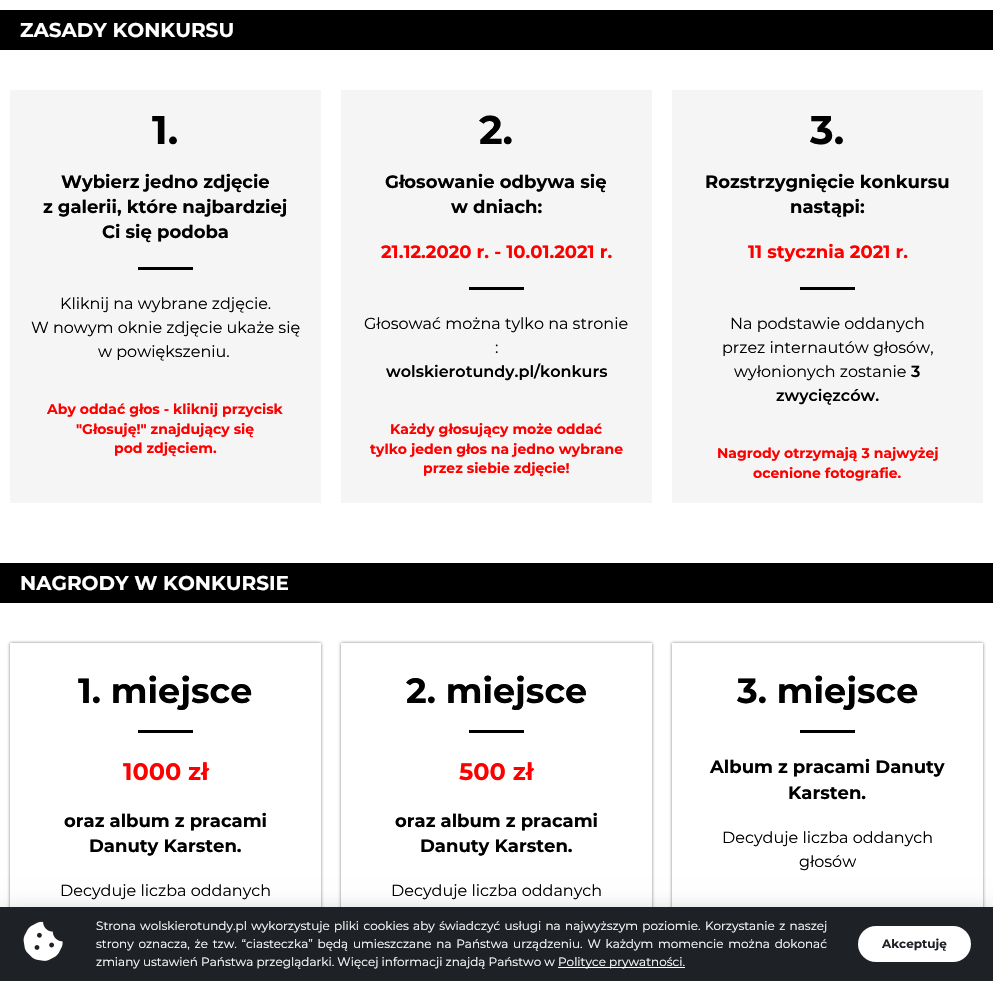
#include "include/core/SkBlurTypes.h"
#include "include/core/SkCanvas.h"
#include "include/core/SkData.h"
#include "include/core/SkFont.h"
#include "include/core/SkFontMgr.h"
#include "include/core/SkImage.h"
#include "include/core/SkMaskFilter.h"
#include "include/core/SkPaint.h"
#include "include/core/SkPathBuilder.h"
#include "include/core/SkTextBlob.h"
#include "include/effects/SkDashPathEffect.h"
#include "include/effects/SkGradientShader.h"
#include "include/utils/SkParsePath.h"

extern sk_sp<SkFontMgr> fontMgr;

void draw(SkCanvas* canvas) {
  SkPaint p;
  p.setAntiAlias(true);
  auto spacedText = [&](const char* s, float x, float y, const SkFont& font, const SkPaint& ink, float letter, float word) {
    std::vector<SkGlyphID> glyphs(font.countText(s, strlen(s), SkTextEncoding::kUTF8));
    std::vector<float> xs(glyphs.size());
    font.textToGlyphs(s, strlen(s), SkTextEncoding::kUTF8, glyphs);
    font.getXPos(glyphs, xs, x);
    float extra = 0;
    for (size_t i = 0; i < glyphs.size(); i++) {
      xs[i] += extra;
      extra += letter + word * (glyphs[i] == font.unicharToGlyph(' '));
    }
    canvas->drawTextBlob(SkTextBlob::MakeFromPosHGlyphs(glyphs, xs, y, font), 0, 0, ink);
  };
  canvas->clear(SK_ColorWHITE);
  p.setColor(SK_ColorBLACK);
  canvas->drawRect(SkRect::MakeLTRB(0, 10, 993, 50), p);
  p.setColor(SkColorSetRGB(245, 245, 245));
  canvas->drawRect(SkRect::MakeLTRB(10, 90, 321, 503), p);
  p.setColor(SK_ColorBLACK);
  canvas->drawRect(SkRect::MakeLTRB(138, 267, 193, 270), p);
  p.setColor(SkColorSetRGB(245, 245, 245));
  canvas->drawRect(SkRect::MakeLTRB(341, 90, 652, 503), p);
  p.setColor(SK_ColorBLACK);
  canvas->drawRect(SkRect::MakeLTRB(469, 287, 524, 290), p);
  p.setColor(SkColorSetRGB(245, 245, 245));
  canvas->drawRect(SkRect::MakeLTRB(672, 90, 983, 503), p);
  p.setColor(SK_ColorBLACK);
  canvas->drawRect(SkRect::MakeLTRB(800, 287, 855, 290), p);
  canvas->drawRect(SkRect::MakeLTRB(0, 563, 993, 603), p);
  canvas->save();
  canvas->clipPath(SkPathBuilder(SkPathFillType::kEvenOdd).moveTo(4, 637).lineTo(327, 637).lineTo(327, 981).lineTo(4, 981).close().moveTo(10, 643).lineTo(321, 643).lineTo(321, 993).lineTo(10, 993).close().detach(), true);
  p.setColor(SkColorSetARGB(128, 0, 0, 0));
  p.setMaskFilter(SkMaskFilter::MakeBlur(kNormal_SkBlurStyle, 1.5f));
  canvas->drawRect(SkRect::MakeLTRB(10, 643, 321, 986), p);
  p.setMaskFilter(nullptr);
  canvas->restore();
  p.setColor(SK_ColorBLACK);
  canvas->drawRect(SkRect::MakeLTRB(138, 730, 193, 733), p);
  canvas->save();
  canvas->clipPath(SkPathBuilder(SkPathFillType::kEvenOdd).moveTo(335, 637).lineTo(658, 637).lineTo(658, 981).lineTo(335, 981).close().moveTo(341, 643).lineTo(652, 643).lineTo(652, 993).lineTo(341, 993).close().detach(), true);
  p.setColor(SkColorSetARGB(128, 0, 0, 0));
  p.setMaskFilter(SkMaskFilter::MakeBlur(kNormal_SkBlurStyle, 1.5f));
  canvas->drawRect(SkRect::MakeLTRB(341, 643, 652, 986), p);
  p.setMaskFilter(nullptr);
  canvas->restore();
  p.setColor(SK_ColorBLACK);
  canvas->drawRect(SkRect::MakeLTRB(469, 730, 524, 733), p);
  canvas->save();
  canvas->clipPath(SkPathBuilder(SkPathFillType::kEvenOdd).moveTo(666, 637).lineTo(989, 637).lineTo(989, 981).lineTo(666, 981).close().moveTo(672, 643).lineTo(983, 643).lineTo(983, 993).lineTo(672, 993).close().detach(), true);
  p.setColor(SkColorSetARGB(128, 0, 0, 0));
  p.setMaskFilter(SkMaskFilter::MakeBlur(kNormal_SkBlurStyle, 1.5f));
  canvas->drawRect(SkRect::MakeLTRB(672, 643, 983, 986), p);
  p.setMaskFilter(nullptr);
  canvas->restore();
  p.setColor(SK_ColorBLACK);
  canvas->drawRect(SkRect::MakeLTRB(800, 730, 855, 733), p);
  p.setColor(SkColorSetARGB(51, 0, 0, 0));
  p.setMaskFilter(SkMaskFilter::MakeBlur(kNormal_SkBlurStyle, 11.5f));
  canvas->drawRect(SkRect::MakeLTRB(-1, 912, 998, 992), p);
  p.setMaskFilter(nullptr);
  p.setColor(SkColorSetRGB(30, 33, 38));
  canvas->drawRect(SkRect::MakeLTRB(0, 907, 993, 981), p);
  canvas->drawImageRect(SkImages::DeferredFromEncodedData(SkData::MakeFromFileName("images/1.png")), SkRect::MakeLTRB(23, 921, 63, 961), SkSamplingOptions());
  p.setColor(SK_ColorWHITE);
  canvas->drawRect(SkRect::MakeLTRB(558, 967, 685, 968), p);
  canvas->drawRoundRect(SkRect::MakeLTRB(858, 926, 971, 962), 18, 18, p);
  SkFont font1(fontMgr->matchFamilyStyle("Montserrat", SkFontStyle::Bold()), 20);
  font1.setSubpixel(true);
  canvas->drawString("ZASADY KONKURSU", 20, 37, font1, p);
  SkFont font2(fontMgr->matchFamilyStyle("Montserrat", SkFontStyle::Bold()), 40);
  font2.setSubpixel(true);
  p.setColor(SK_ColorBLACK);
  canvas->drawString("1.", 152, 144, font2, p);
  SkFont font3(fontMgr->matchFamilyStyle("Montserrat", SkFontStyle::Bold()), 18);
  font3.setSubpixel(true);
  canvas->drawString("Wybierz jedno zdjęcie", 61, 188, font3, p);
  canvas->drawString("z galerii, które najbardziej", 43, 213, font3, p);
  canvas->drawString("Ci się podoba", 102, 238, font3, p);
  SkFont font4(fontMgr->matchFamilyStyle("Montserrat", SkFontStyle::Normal()), 16);
  font4.setSubpixel(true);
  canvas->drawString("Kliknij na wybrane zdjęcie.", 60, 309, font4, p);
  canvas->drawString("W nowym oknie zdjęcie ukaże się", 31, 333, font4, p);
  canvas->drawString("w powiększeniu.", 98, 357, font4, p);
  SkFont font5(fontMgr->matchFamilyStyle("Montserrat", SkFontStyle::Bold()), 14);
  font5.setSubpixel(true);
  p.setColor(SkColorSetRGB(255, 0, 0));
  canvas->drawString("Aby oddać głos - kliknij przycisk", 47, 414, font5, p);
  canvas->drawString("\"Głosuję!\" znajdujący się", 76, 434, font5, p);
  canvas->drawString("pod zdjęciem.", 114, 453, font5, p);
  p.setColor(SK_ColorBLACK);
  canvas->drawString("2.", 479, 144, font2, p);
  canvas->drawString("Głosowanie odbywa się", 385, 188, font3, p);
  canvas->drawString("w dniach:", 451, 213, font3, p);
  p.setColor(SkColorSetRGB(255, 0, 0));
  canvas->drawString("21.12.2020 r. - 10.01.2021 r.", 381, 258, font3, p);
  p.setColor(SK_ColorBLACK);
  canvas->drawString("Głosować można tylko na stronie", 364, 329, font4, p);
  canvas->drawString(":", 495, 353, font4, p);
  SkFont font6(fontMgr->matchFamilyStyle("Montserrat", SkFontStyle(600, SkFontStyle::kNormal_Width, SkFontStyle::kUpright_Slant)), 16);
  font6.setSubpixel(true);
  canvas->drawString("wolskierotundy.pl/konkurs", 386, 377, font6, p);
  p.setColor(SkColorSetRGB(255, 0, 0));
  canvas->drawString("Każdy głosujący może oddać", 390, 434, font5, p);
  canvas->drawString("tylko jeden głos na jedno wybrane", 370, 454, font5, p);
  canvas->drawString("przez siebie zdjęcie!", 423, 473, font5, p);
  p.setColor(SK_ColorBLACK);
  canvas->drawString("3.", 810, 144, font2, p);
  canvas->drawString("Rozstrzygnięcie konkursu", 705, 188, font3, p);
  canvas->drawString("nastąpi:", 790, 213, font3, p);
  p.setColor(SkColorSetRGB(255, 0, 0));
  canvas->drawString("11 stycznia 2021 r.", 748, 258, font3, p);
  p.setColor(SK_ColorBLACK);
  canvas->drawString("Na podstawie oddanych", 730, 329, font4, p);
  canvas->drawString("przez internautów głosów,", 722, 353, font4, p);
  canvas->drawString("wyłonionych zostanie", 734, 377, font4, p);
  canvas->drawString("3", 911, 377, font6, p);
  canvas->drawString("zwycięzców.", 776, 401, font6, p);
  p.setColor(SkColorSetRGB(255, 0, 0));
  canvas->drawString("Nagrody otrzymają 3 najwyżej", 717, 458, font5, p);
  canvas->drawString("ocenione fotografie.", 753, 478, font5, p);
  p.setColor(SK_ColorWHITE);
  canvas->drawString("NAGRODY W KONKURSIE", 20, 590, font1, p);
  SkFont font7(fontMgr->matchFamilyStyle("Montserrat", SkFontStyle::Bold()), 35);
  font7.setSubpixel(true);
  p.setColor(SK_ColorBLACK);
  canvas->drawString("1. miejsce", 78, 703, font7, p);
  SkFont font8(fontMgr->matchFamilyStyle("Montserrat", SkFontStyle::Bold()), 24);
  font8.setSubpixel(true);
  p.setColor(SkColorSetRGB(255, 0, 0));
  canvas->drawString("1000 zł", 123, 780, font8, p);
  p.setColor(SK_ColorBLACK);
  canvas->drawString("oraz album z pracami", 64, 827, font3, p);
  canvas->drawString("Danuty Karsten.", 89, 852, font3, p);
  canvas->drawString("Decyduje liczba oddanych", 60, 896, font4, p);
  canvas->drawString("2. miejsce", 406, 703, font7, p);
  p.setColor(SkColorSetRGB(255, 0, 0));
  canvas->drawString("500 zł", 459, 780, font8, p);
  p.setColor(SK_ColorBLACK);
  canvas->drawString("oraz album z pracami", 395, 827, font3, p);
  canvas->drawString("Danuty Karsten.", 420, 852, font3, p);
  canvas->drawString("Decyduje liczba oddanych", 391, 896, font4, p);
  canvas->drawString("3. miejsce", 737, 703, font7, p);
  canvas->drawString("Album z pracami Danuty", 710, 773, font3, p);
  canvas->drawString("Karsten.", 788, 799, font3, p);
  canvas->drawString("Decyduje liczba oddanych", 722, 843, font4, p);
  canvas->drawString("głosów", 799, 867, font4, p);
  SkFont font9(fontMgr->matchFamilyStyle("Montserrat", SkFontStyle::Normal()), 12);
  font9.setSubpixel(true);
  p.setColor(SK_ColorWHITE);
  spacedText("Strona wolskierotundy.pl wykorzystuje pliki cookies aby świadczyć usługi na najwyższym poziomie. Korzystanie z naszej", 96, 930, font9, p, 0, 1.2f);
  spacedText("strony oznacza, że tzw. “ciasteczka” będą umieszczane na Państwa urządzeniu. W każdym momencie można dokonać", 96, 948, font9, p, 0, 1.6f);
  canvas->drawString("zmiany ustawień Państwa przeglądarki. Więcej informacji znajdą Państwo w", 96, 966, font9, p);
  canvas->drawString("Polityce prywatności.", 558, 966, font9, p);
  SkFont font10(fontMgr->matchFamilyStyle("Montserrat", SkFontStyle::Bold()), 12);
  font10.setSubpixel(true);
  p.setColor(SkColorSetRGB(30, 33, 38));
  canvas->drawString("Akceptuję", 882, 948, font10, p);
}
